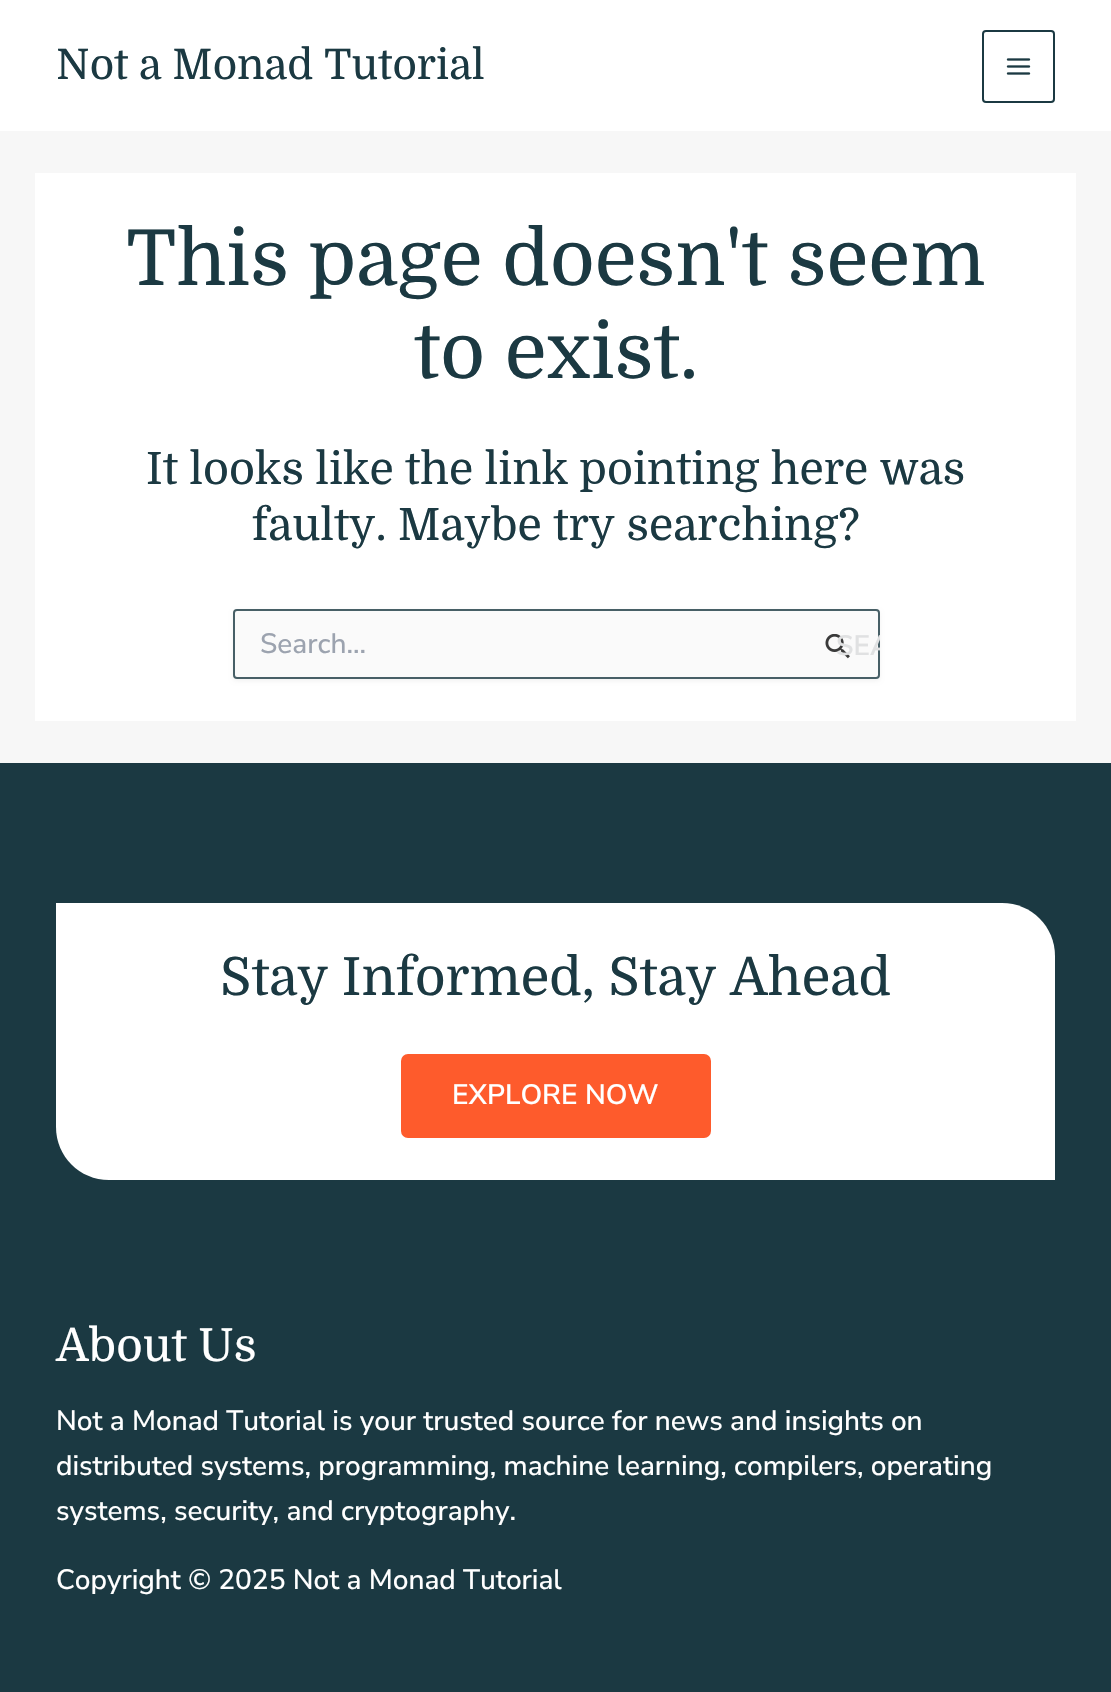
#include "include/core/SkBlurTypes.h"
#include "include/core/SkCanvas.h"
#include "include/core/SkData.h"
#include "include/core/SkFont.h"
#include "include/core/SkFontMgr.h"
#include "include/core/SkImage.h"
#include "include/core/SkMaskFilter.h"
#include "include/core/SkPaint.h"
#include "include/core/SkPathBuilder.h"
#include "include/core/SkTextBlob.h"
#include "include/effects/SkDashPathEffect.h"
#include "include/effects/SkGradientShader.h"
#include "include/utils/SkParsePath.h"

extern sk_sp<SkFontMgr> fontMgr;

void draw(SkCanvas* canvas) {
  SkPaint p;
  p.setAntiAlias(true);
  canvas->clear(SkColorSetRGB(247, 247, 247));
  p.setColor(SK_ColorWHITE);
  canvas->drawRect(SkRect::MakeLTRB(0, 0, 1111, 131), p);
  p.setStyle(SkPaint::kStroke_Style);
  p.setStrokeWidth(2);
  p.setColor(SkColorSetRGB(27, 57, 66));
  canvas->drawRoundRect(SkRect::MakeLTRB(983, 31, 1054, 102), 3, 3, p);
  canvas->drawImageRect(SkImages::DeferredFromEncodedData(SkData::MakeFromFileName("images/1.png")), SkRect::MakeLTRB(1006, 58, 1031, 75), SkSamplingOptions());
  p.setStyle(SkPaint::kFill_Style);
  p.setColor(SK_ColorWHITE);
  canvas->drawRect(SkRect::MakeLTRB(35, 173, 1076, 721), p);
  p.setColor(SkColorSetARGB(13, 0, 0, 0));
  p.setMaskFilter(SkMaskFilter::MakeBlur(kNormal_SkBlurStyle, 2));
  canvas->drawRoundRect(SkRect::MakeLTRB(233, 611, 880, 681), 4, 4, p);
  p.setMaskFilter(nullptr);
  p.setColor(SkColorSetRGB(250, 250, 250));
  canvas->drawRoundRect(SkRect::MakeLTRB(234, 610, 879, 678), 3, 3, p);
  p.setStyle(SkPaint::kStroke_Style);
  p.setColor(SkColorSetRGB(71, 95, 102));
  canvas->drawRoundRect(SkRect::MakeLTRB(234, 610, 879, 678), 3, 3, p);
  canvas->drawImageRect(SkImages::DeferredFromEncodedData(SkData::MakeFromFileName("images/2.png")), SkRect::MakeLTRB(825, 634, 850, 659), SkSamplingOptions());
  p.setStyle(SkPaint::kFill_Style);
  p.setColor(SkColorSetRGB(27, 57, 66));
  canvas->drawRect(SkRect::MakeLTRB(0, 763, 1111, 1692), p);
  p.setColor(SK_ColorWHITE);
  canvas->drawPath(SkPathBuilder().moveTo(56, 903).lineTo(1002, 903).cubicTo(1031.5f, 903, 1055, 926.5f, 1055, 956).lineTo(1055, 1180).lineTo(109, 1180).cubicTo(79.5f, 1180, 56, 1156.5f, 56, 1127).close().detach(), p);
  p.setColor(SkColorSetRGB(254, 91, 44));
  canvas->drawRoundRect(SkRect::MakeLTRB(403, 1056, 709, 1136), 5, 5, p);
  p.setStyle(SkPaint::kStroke_Style);
  p.setStrokeWidth(4);
  canvas->drawRoundRect(SkRect::MakeLTRB(403, 1056, 709, 1136), 5, 5, p);
  SkFont font1(fontMgr->matchFamilyStyle("Domine", SkFontStyle::Normal()), 42);
  font1.setSubpixel(true);
  p.setStyle(SkPaint::kFill_Style);
  p.setColor(SkColorSetRGB(27, 57, 66));
  canvas->drawString("Not a Monad Tutorial", 56, 79, font1, p);
  SkFont font2(fontMgr->matchFamilyStyle("Domine", SkFontStyle::Normal()), 77);
  font2.setSubpixel(true);
  canvas->drawString("This page doesn't seem", 126, 285, font2, p);
  canvas->drawString("to exist.", 414, 378, font2, p);
  SkFont font3(fontMgr->matchFamilyStyle("Domine", SkFontStyle::Normal()), 44.6f);
  font3.setSubpixel(true);
  canvas->drawString("It looks like the link pointing here was", 146, 484, font3, p);
  canvas->drawString("faulty. Maybe try searching?", 252, 540, font3, p);
  SkFont font4(fontMgr->matchFamilyStyle("Nunito Sans", SkFontStyle(500, SkFontStyle::kNormal_Width, SkFontStyle::kUpright_Slant)), 28);
  font4.setSubpixel(true);
  p.setColor(SkColorSetRGB(156, 163, 175));
  canvas->drawString("Search...", 260, 653, font4, p);
  canvas->save();
  canvas->clipPath(SkPathBuilder().moveTo(806, 609).lineTo(876, 609).cubicTo(878, 609, 880, 611, 880, 613).lineTo(880, 679).cubicTo(880, 681, 878, 683, 876, 683).lineTo(806, 683).cubicTo(804, 683, 802, 681, 802, 679).lineTo(802, 613).cubicTo(802, 611, 804, 609, 806, 609).close().detach(), true);
  SkFont font5(fontMgr->matchFamilyStyle("Nunito Sans", SkFontStyle(600, SkFontStyle::kNormal_Width, SkFontStyle::kUpright_Slant)), 28);
  font5.setSubpixel(true);
  p.setColor(SkColorSetRGB(224, 225, 226));
  canvas->drawString("SEA", 836, 655, font5, p);
  canvas->restore();
  SkFont font6(fontMgr->matchFamilyStyle("Domine", SkFontStyle::Normal()), 52.5f);
  font6.setSubpixel(true);
  p.setColor(SkColorSetRGB(27, 57, 66));
  canvas->drawString("Stay Informed, Stay Ahead", 220, 995, font6, p);
  p.setColor(SK_ColorWHITE);
  canvas->drawString("EXPLORE NOW", 452, 1104, font5, p);
  SkFont font7(fontMgr->matchFamilyStyle("Domine", SkFontStyle::Normal()), 45.5f);
  font7.setSubpixel(true);
  canvas->drawString("About Us", 56, 1361, font7, p);
  canvas->drawString("Not a Monad Tutorial is your trusted source for news and insights on", 56, 1430, font4, p);
  canvas->drawString("distributed systems, programming, machine learning, compilers, operating", 56, 1475, font4, p);
  canvas->drawString("systems, security, and cryptography.", 56, 1520, font4, p);
  canvas->drawString("Copyright © 2025 Not a Monad Tutorial", 56, 1589, font4, p);
}
